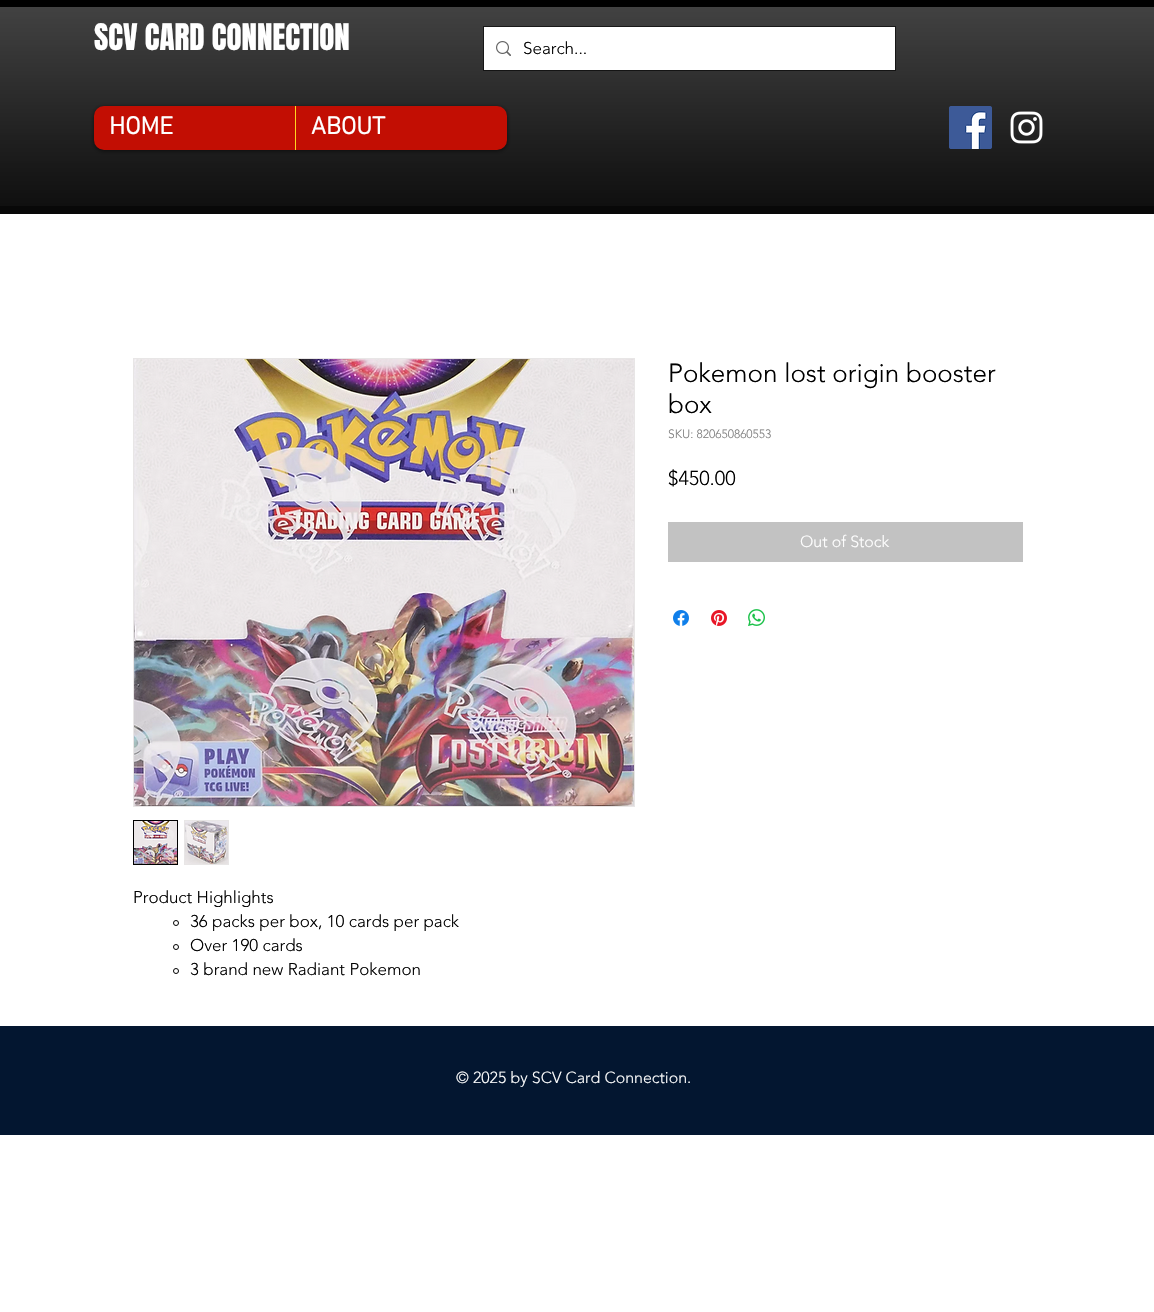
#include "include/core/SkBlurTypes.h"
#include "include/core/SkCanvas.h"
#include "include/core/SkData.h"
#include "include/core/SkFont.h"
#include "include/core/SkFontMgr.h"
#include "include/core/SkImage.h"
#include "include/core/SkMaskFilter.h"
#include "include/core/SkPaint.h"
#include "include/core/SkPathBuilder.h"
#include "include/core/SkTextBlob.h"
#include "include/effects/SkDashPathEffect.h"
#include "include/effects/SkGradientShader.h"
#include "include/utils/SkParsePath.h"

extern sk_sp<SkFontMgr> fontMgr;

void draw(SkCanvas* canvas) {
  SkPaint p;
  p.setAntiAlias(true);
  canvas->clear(SK_ColorWHITE);
  p.setColor(SK_ColorBLACK);
  canvas->drawRect(SkRect::MakeLTRB(0, 0, 1154, 206), p);
  canvas->drawImageRect(SkImages::DeferredFromEncodedData(SkData::MakeFromFileName("images/1.png")), SkRect::MakeLTRB(0, 7, 1154, 206), SkSamplingOptions());
  p.setColor(SkColorSetRGB(8, 8, 8));
  canvas->drawRect(SkRect::MakeLTRB(0, 206, 1154, 214), p);
  p.setStyle(SkPaint::kStroke_Style);
  p.setStrokeWidth(1);
  p.setColor(SkColorSetARGB(153, 0, 0, 0));
  canvas->drawRect(SkRect::MakeLTRB(483.5f, 26.5f, 895.5f, 70.5f), p);
  p.setStyle(SkPaint::kFill_Style);
  p.setColor(SK_ColorWHITE);
  canvas->drawRect(SkRect::MakeLTRB(484, 27, 895, 70), p);
  canvas->drawImageRect(SkImages::DeferredFromEncodedData(SkData::MakeFromFileName("images/2.png")), SkRect::MakeLTRB(496, 41, 511, 56), SkSamplingOptions());
  p.setColor(SkColorSetARGB(153, 0, 0, 0));
  p.setMaskFilter(SkMaskFilter::MakeBlur(kNormal_SkBlurStyle, 2));
  canvas->drawRoundRect(SkRect::MakeLTRB(94, 107, 507, 151), 10, 10, p);
  p.setMaskFilter(nullptr);
  p.setColor(SkColorSetRGB(194, 14, 3));
  canvas->drawRoundRect(SkRect::MakeLTRB(94, 106, 507, 150), 10, 10, p);
  p.setColor(SkColorSetRGB(254, 214, 31));
  canvas->drawRect(SkRect::MakeLTRB(295, 106, 296, 150), p);
  canvas->drawImageRect(SkImages::DeferredFromEncodedData(SkData::MakeFromFileName("images/3.png")), SkRect::MakeLTRB(949, 106, 992, 149), SkSamplingOptions());
  canvas->drawImageRect(SkImages::DeferredFromEncodedData(SkData::MakeFromFileName("images/4.png")), SkRect::MakeLTRB(1010, 111, 1043, 144), SkSamplingOptions());
  p.setColor(SkColorSetRGB(194, 194, 194));
  canvas->drawRect(SkRect::MakeLTRB(668, 522, 1023, 562), p);
  canvas->drawImageRect(SkImages::DeferredFromEncodedData(SkData::MakeFromFileName("images/5.png")), SkRect::MakeLTRB(673, 610, 689, 626), SkSamplingOptions());
  canvas->drawImageRect(SkImages::DeferredFromEncodedData(SkData::MakeFromFileName("images/6.png")), SkRect::MakeLTRB(711, 610, 727, 626), SkSamplingOptions());
  canvas->drawImageRect(SkImages::DeferredFromEncodedData(SkData::MakeFromFileName("images/7.png")), SkRect::MakeLTRB(748, 609, 765, 626), SkSamplingOptions());
  p.setStyle(SkPaint::kStroke_Style);
  p.setColor(SkColorSetRGB(232, 230, 230));
  canvas->drawRect(SkRect::MakeLTRB(133.5f, 358.5f, 634.5f, 806.5f), p);
  canvas->drawImageRect(SkImages::DeferredFromEncodedData(SkData::MakeFromFileName("images/8.png")), SkRect::MakeLTRB(134, 359, 634, 806), SkSamplingOptions());
  p.setColor(SK_ColorBLACK);
  canvas->drawRect(SkRect::MakeLTRB(133.5f, 820.5f, 177.5f, 864.5f), p);
  canvas->drawImageRect(SkImages::DeferredFromEncodedData(SkData::MakeFromFileName("images/9.png")), SkRect::MakeLTRB(134, 821, 177, 864), SkSamplingOptions());
  p.setColor(SkColorSetRGB(232, 230, 230));
  canvas->drawRect(SkRect::MakeLTRB(184.5f, 820.5f, 228.5f, 864.5f), p);
  canvas->drawImageRect(SkImages::DeferredFromEncodedData(SkData::MakeFromFileName("images/10.png")), SkRect::MakeLTRB(185, 821, 228, 864), SkSamplingOptions());
  p.setColor(SK_ColorBLACK);
  canvas->drawCircle(176, 923, 2.5f, p);
  canvas->drawCircle(176, 947, 2.5f, p);
  canvas->drawCircle(176, 971, 2.5f, p);
  p.setStyle(SkPaint::kFill_Style);
  p.setColor(SkColorSetRGB(3, 22, 48));
  canvas->drawRect(SkRect::MakeLTRB(0, 1026, 1154, 1135), p);
  SkFont font1(fontMgr->matchFamilyStyle("Anton", SkFontStyle::Normal()), 31);
  font1.setSubpixel(true);
  p.setColor(SK_ColorWHITE);
  canvas->drawString("SCV CARD CONNECTION", 94, 50, font1, p);
  SkFont font2(fontMgr->matchFamilyStyle("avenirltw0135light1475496", SkFontStyle(300, SkFontStyle::kNormal_Width, SkFontStyle::kUpright_Slant)), 17);
  font2.setSubpixel(true);
  p.setColor(SK_ColorBLACK);
  canvas->drawString("Search...", 523, 54, font2, p);
  SkFont font3(fontMgr->matchFamilyStyle("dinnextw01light", SkFontStyle::Bold()), 25);
  font3.setSubpixel(true);
  p.setColor(SK_ColorWHITE);
  canvas->drawString("HOME", 109, 134, font3, p);
  canvas->drawString("ABOUT", 311, 134, font3, p);
  SkFont font4(fontMgr->matchFamilyStyle("avenirltw0135light1475496", SkFontStyle(300, SkFontStyle::kNormal_Width, SkFontStyle::kUpright_Slant)), 26);
  font4.setSubpixel(true);
  p.setColor(SK_ColorBLACK);
  canvas->drawString("Pokemon lost origin booster", 668, 382, font4, p);
  canvas->drawString("box", 668, 413, font4, p);
  SkFont font5(fontMgr->matchFamilyStyle("avenirltw0135light1475496", SkFontStyle(300, SkFontStyle::kNormal_Width, SkFontStyle::kUpright_Slant)), 12);
  font5.setSubpixel(true);
  p.setColor(SkColorSetRGB(128, 128, 128));
  canvas->drawString("SKU: 820650860553", 668, 438, font5, p);
  SkFont font6(fontMgr->matchFamilyStyle("avenirltw0135light1475496", SkFontStyle(300, SkFontStyle::kNormal_Width, SkFontStyle::kUpright_Slant)), 20);
  font6.setSubpixel(true);
  p.setColor(SK_ColorBLACK);
  canvas->drawString("$450.00", 668, 485, font6, p);
  SkFont font7(fontMgr->matchFamilyStyle("avenirltw0135light1475496", SkFontStyle(300, SkFontStyle::kNormal_Width, SkFontStyle::kUpright_Slant)), 16);
  font7.setSubpixel(true);
  p.setColor(SK_ColorWHITE);
  canvas->drawString("Out of Stock", 800, 547, font7, p);
  p.setColor(SK_ColorBLACK);
  canvas->drawString("Product Highlights", 133, 903, font2, p);
  canvas->drawString("36 packs per box, 10 cards per pack", 190, 927, font2, p);
  canvas->drawString("Over 190 cards", 190, 951, font2, p);
  canvas->drawString("3 brand new Radiant Pokemon", 190, 975, font2, p);
  p.setColor(SK_ColorWHITE);
  canvas->drawString("© 2025 by SCV Card Connection.", 456, 1083, font7, p);
}
